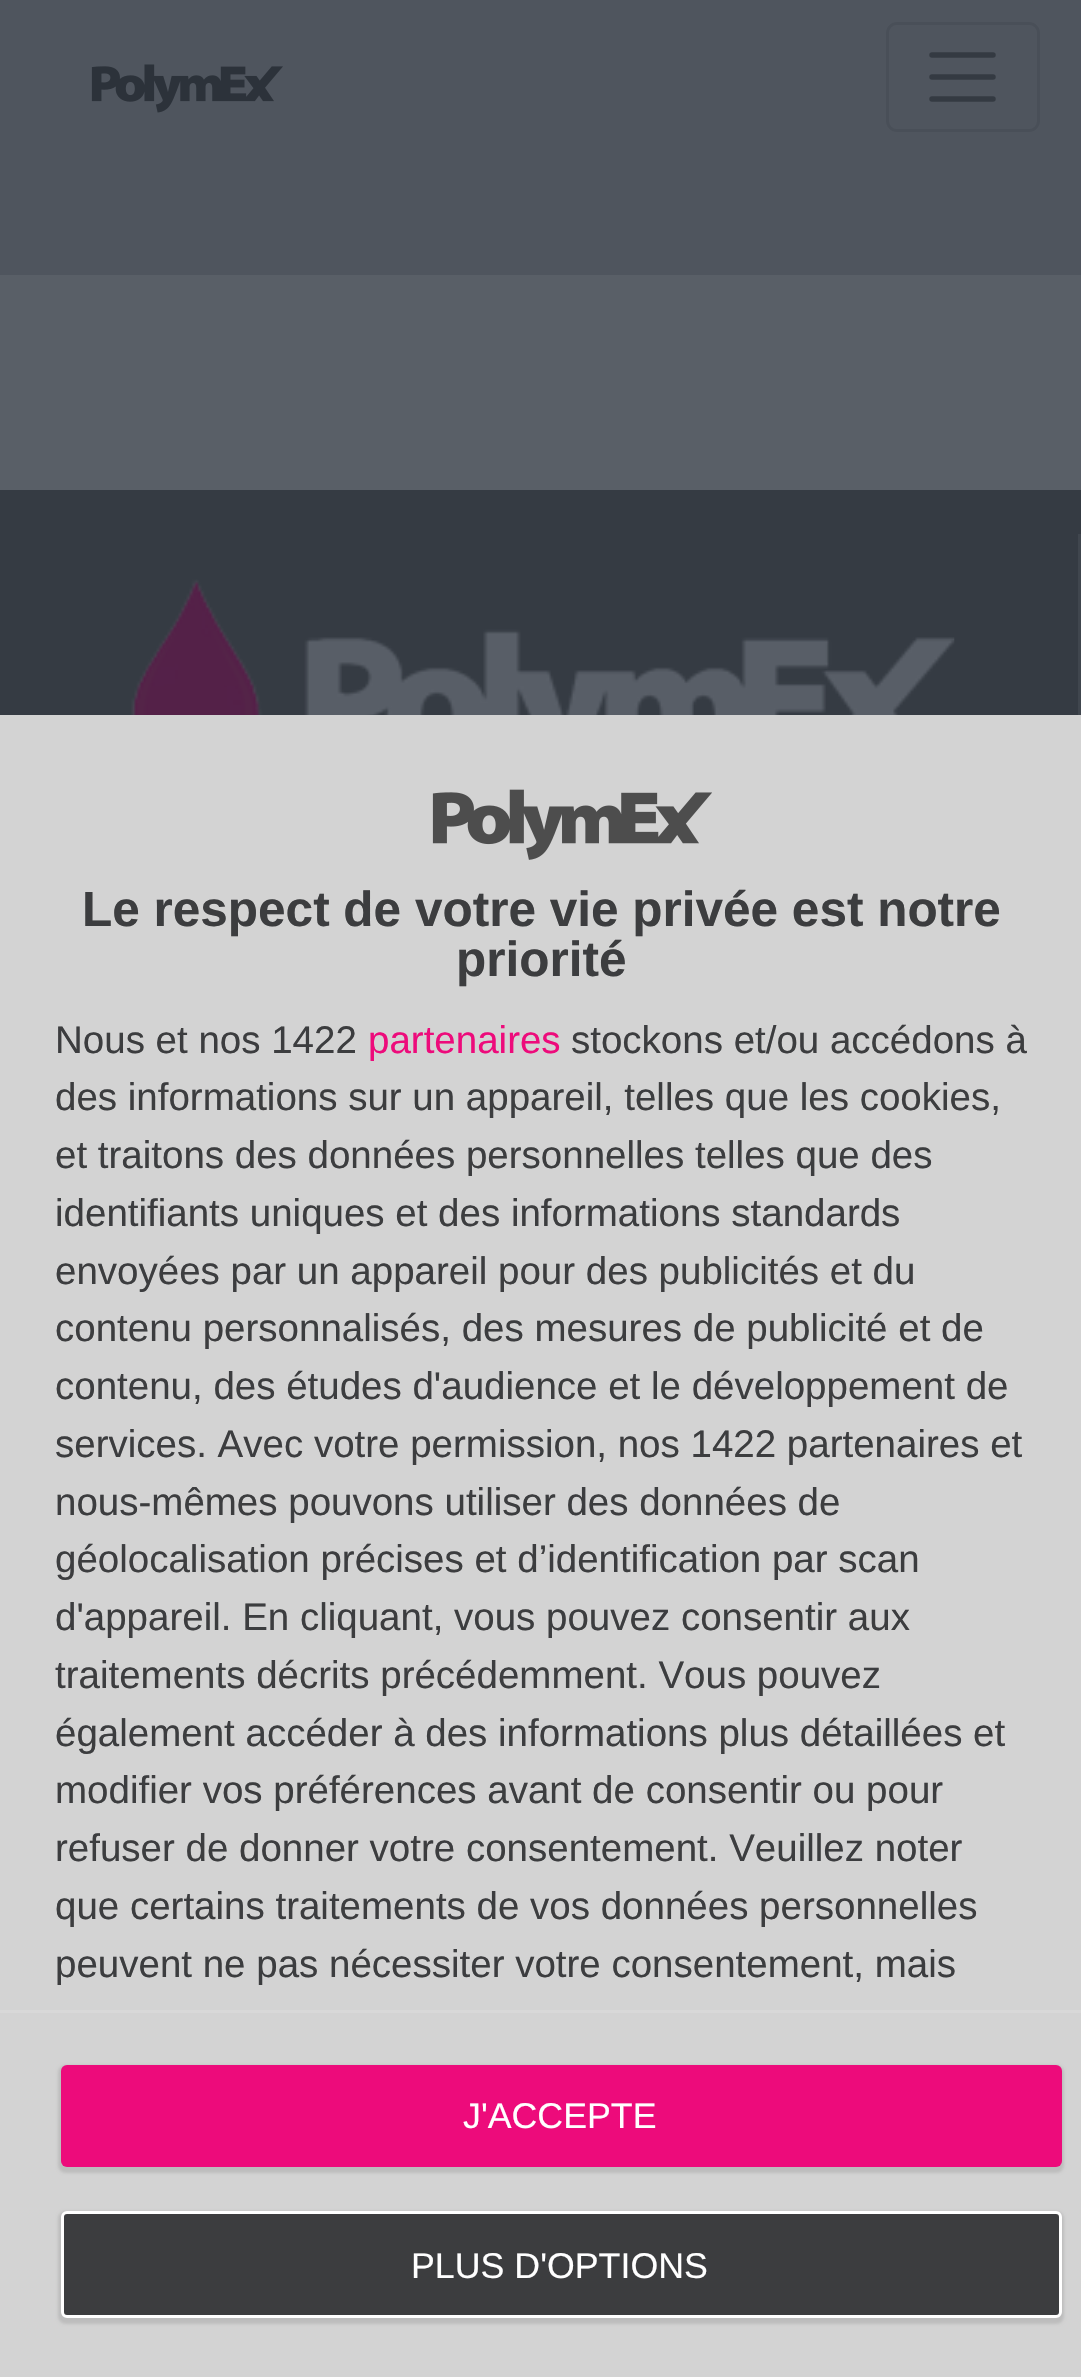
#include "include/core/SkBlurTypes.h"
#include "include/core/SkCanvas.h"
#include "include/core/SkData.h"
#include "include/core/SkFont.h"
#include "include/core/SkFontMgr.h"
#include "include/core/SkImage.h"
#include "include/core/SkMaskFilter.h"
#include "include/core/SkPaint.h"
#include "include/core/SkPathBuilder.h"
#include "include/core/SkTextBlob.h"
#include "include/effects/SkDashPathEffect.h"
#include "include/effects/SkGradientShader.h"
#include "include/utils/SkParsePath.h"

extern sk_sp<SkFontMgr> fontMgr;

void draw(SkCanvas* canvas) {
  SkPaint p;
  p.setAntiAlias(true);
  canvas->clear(SkColorSetRGB(89, 95, 103));
  p.setColor(SkColorSetRGB(79, 85, 94));
  canvas->drawRect(SkRect::MakeLTRB(0, 0, 1081, 275), p);
  canvas->drawImageRect(SkImages::DeferredFromEncodedData(SkData::MakeFromFileName("images/1.png")), SkRect::MakeLTRB(91, 64, 283, 113), SkSamplingOptions());
  p.setStyle(SkPaint::kStroke_Style);
  p.setStrokeWidth(3);
  p.setColor(SkColorSetRGB(73, 79, 88));
  canvas->drawRoundRect(SkRect::MakeLTRB(887.5f, 23.5f, 1038.5f, 130.5f), 9.5f, 9.5f, p);
  p.setStrokeWidth(5.5f);
  p.setStrokeCap(SkPaint::kRound_Cap);
  p.setColor(SkColorSetRGB(52, 58, 66));
  canvas->drawPath(SkPathBuilder().moveTo(932, 55).lineTo(993, 55).moveTo(932, 77).lineTo(993, 77).moveTo(932, 99).lineTo(993, 99).detach(), p);
  p.setStyle(SkPaint::kFill_Style);
  p.setColor(SkColorSetRGB(53, 59, 67));
  canvas->drawRect(SkRect::MakeLTRB(0, 490, 1081, 715), p);
  p.setColor(SkColorSetRGB(64, 70, 78));
  canvas->drawRect(SkRect::MakeLTRB(1078, 534, 1081, 715), p);
  canvas->drawImageRect(SkImages::DeferredFromEncodedData(SkData::MakeFromFileName("images/2.png")), SkRect::MakeLTRB(131, 579, 955, 715), SkSamplingOptions());
  p.setColor(SkColorSetRGB(211, 211, 211));
  canvas->drawRect(SkRect::MakeLTRB(0, 715, 1081, 2377), p);
  canvas->drawImageRect(SkImages::DeferredFromEncodedData(SkData::MakeFromFileName("images/3.png")), SkRect::MakeLTRB(432, 789, 712, 860), SkSamplingOptions());
  p.setColor(SkColorSetRGB(216, 216, 216));
  canvas->drawRect(SkRect::MakeLTRB(0, 2010, 1081, 2013), p);
  p.setColor(SkColorSetARGB(26, 0, 0, 0));
  p.setMaskFilter(SkMaskFilter::MakeBlur(kNormal_SkBlurStyle, 1.5f));
  canvas->drawRoundRect(SkRect::MakeLTRB(58, 2065, 1064, 2173), 8, 8, p);
  p.setMaskFilter(nullptr);
  p.setColor(SkColorSetRGB(237, 11, 123));
  canvas->drawRoundRect(SkRect::MakeLTRB(61, 2065, 1062, 2167), 6, 6, p);
  p.setColor(SkColorSetARGB(26, 0, 0, 0));
  p.setMaskFilter(SkMaskFilter::MakeBlur(kNormal_SkBlurStyle, 1.5f));
  canvas->drawRoundRect(SkRect::MakeLTRB(58, 2211, 1064, 2324), 8, 8, p);
  p.setMaskFilter(nullptr);
  p.setColor(SkColorSetRGB(60, 61, 63));
  canvas->drawRoundRect(SkRect::MakeLTRB(62.5f, 2212.5f, 1060.5f, 2316.5f), 4.5f, 4.5f, p);
  p.setStyle(SkPaint::kStroke_Style);
  p.setStrokeWidth(3);
  p.setStrokeCap(SkPaint::kButt_Cap);
  p.setColor(SK_ColorWHITE);
  canvas->drawRoundRect(SkRect::MakeLTRB(62.5f, 2212.5f, 1060.5f, 2316.5f), 4.5f, 4.5f, p);
  SkFont font1(fontMgr->matchFamilyStyle("Liberation Sans", SkFontStyle::Bold()), 49.5f);
  font1.setSubpixel(true);
  p.setStyle(SkPaint::kFill_Style);
  p.setColor(SkColorSetRGB(60, 61, 63));
  canvas->drawString("Le respect de votre vie privée est notre", 82, 926, font1, p);
  canvas->drawString("priorité", 456, 976, font1, p);
  SkFont font2(fontMgr->matchFamilyStyle("Liberation Sans", SkFontStyle::Normal()), 38.5f);
  font2.setSubpixel(true);
  canvas->drawString("Nous et nos 1422", 55, 1053, font2, p);
  p.setColor(SkColorSetRGB(237, 11, 123));
  canvas->drawString("partenaires", 368, 1053, font2, p);
  p.setColor(SkColorSetRGB(60, 61, 63));
  canvas->drawString("stockons et/ou accédons à", 571, 1053, font2, p);
  canvas->drawString("des informations sur un appareil, telles que les cookies,", 55, 1110, font2, p);
  canvas->drawString("et traitons des données personnelles telles que des", 55, 1168, font2, p);
  canvas->drawString("identifiants uniques et des informations standards", 55, 1226, font2, p);
  canvas->drawString("envoyées par un appareil pour des publicités et du", 55, 1284, font2, p);
  canvas->drawString("contenu personnalisés, des mesures de publicité et de", 55, 1341, font2, p);
  canvas->drawString("contenu, des études d'audience et le développement de", 55, 1399, font2, p);
  canvas->drawString("services. Avec votre permission, nos 1422 partenaires et", 55, 1457, font2, p);
  canvas->drawString("nous-mêmes pouvons utiliser des données de", 55, 1515, font2, p);
  canvas->drawString("géolocalisation précises et d’identification par scan", 55, 1572, font2, p);
  canvas->drawString("d'appareil. En cliquant, vous pouvez consentir aux", 55, 1630, font2, p);
  canvas->drawString("traitements décrits précédemment. Vous pouvez", 55, 1688, font2, p);
  canvas->drawString("également accéder à des informations plus détaillées et", 55, 1746, font2, p);
  canvas->drawString("modifier vos préférences avant de consentir ou pour", 55, 1803, font2, p);
  canvas->drawString("refuser de donner votre consentement. Veuillez noter", 55, 1861, font2, p);
  canvas->drawString("que certains traitements de vos données personnelles", 55, 1919, font2, p);
  canvas->drawString("peuvent ne pas nécessiter votre consentement, mais", 55, 1977, font2, p);
  SkFont font3(fontMgr->matchFamilyStyle("Liberation Sans", SkFontStyle::Normal()), 35.75f);
  font3.setSubpixel(true);
  p.setColor(SK_ColorWHITE);
  canvas->drawString("J'ACCEPTE", 463, 2128, font3, p);
  canvas->drawString("PLUS D'OPTIONS", 411, 2278, font3, p);
}
